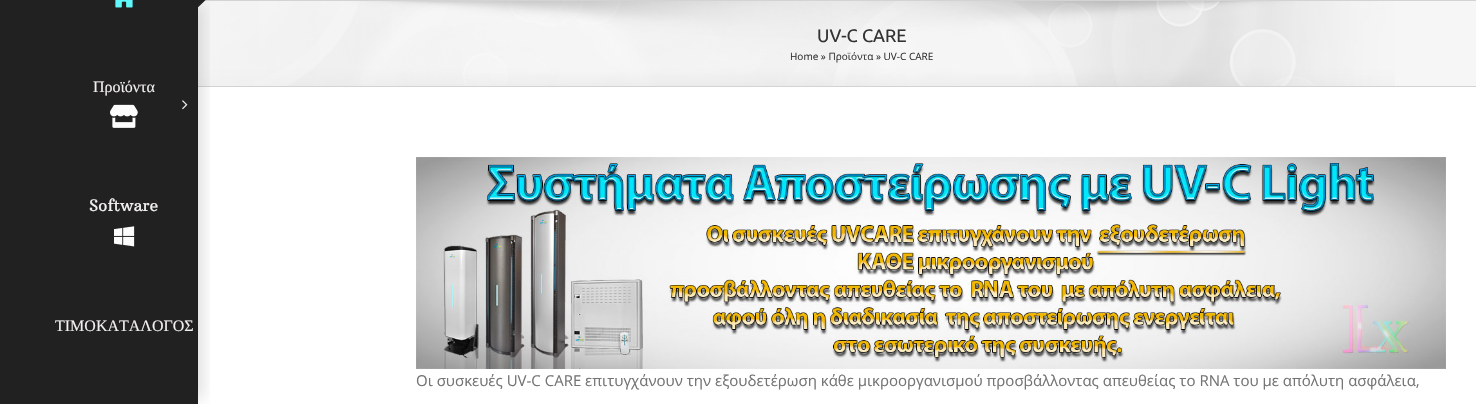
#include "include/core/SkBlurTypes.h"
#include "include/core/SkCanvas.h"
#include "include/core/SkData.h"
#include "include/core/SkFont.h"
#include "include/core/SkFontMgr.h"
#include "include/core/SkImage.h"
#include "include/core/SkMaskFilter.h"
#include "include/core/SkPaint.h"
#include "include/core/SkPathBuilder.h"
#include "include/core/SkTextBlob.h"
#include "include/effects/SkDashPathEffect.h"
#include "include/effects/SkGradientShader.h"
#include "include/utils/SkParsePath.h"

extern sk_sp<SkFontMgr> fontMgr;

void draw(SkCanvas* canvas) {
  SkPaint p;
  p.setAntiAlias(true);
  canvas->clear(SK_ColorWHITE);
  p.setColor(SkColorSetRGB(246, 246, 246));
  canvas->drawRect(SkRect::MakeLTRB(198, 1, 1476, 86), p);
  canvas->drawImageRect(SkImages::DeferredFromEncodedData(SkData::MakeFromFileName("images/1.png")), SkRect::MakeLTRB(198, 1, 1395, 86), SkSamplingOptions());
  p.setColor(SkColorSetRGB(210, 211, 212));
  canvas->drawRect(SkRect::MakeLTRB(198, 0, 1476, 1), p);
  canvas->drawRect(SkRect::MakeLTRB(198, 86, 1476, 87), p);
  p.setColor(SkColorSetRGB(33, 33, 33));
  canvas->drawRect(SkRect::MakeLTRB(0, 0, 198, 404), p);
  canvas->save();
  canvas->clipRect(SkRect::MakeLTRB(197, 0, 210, 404));
  p.setColor(SkColorSetARGB(36, 0, 0, 0));
  p.setMaskFilter(SkMaskFilter::MakeBlur(kNormal_SkBlurStyle, 7.5f));
  canvas->drawRect(SkRect::MakeLTRB(187, 5, 202, 399), p);
  p.setMaskFilter(nullptr);
  canvas->restore();
  p.setColor(SkColorSetRGB(33, 33, 33));
  canvas->drawRect(SkRect::MakeLTRB(197, 43, 198, 44), p);
  canvas->drawImageRect(SkImages::DeferredFromEncodedData(SkData::MakeFromFileName("images/2.png")), SkRect::MakeLTRB(115, 0, 133, 8), SkSamplingOptions());
  canvas->drawImageRect(SkImages::DeferredFromEncodedData(SkData::MakeFromFileName("images/3.png")), SkRect::MakeLTRB(198, 0, 206, 8), SkSamplingOptions());
  canvas->drawRect(SkRect::MakeLTRB(197, 162, 198, 163), p);
  canvas->drawImageRect(SkImages::DeferredFromEncodedData(SkData::MakeFromFileName("images/4.png")), SkRect::MakeLTRB(110, 104, 138, 128), SkSamplingOptions());
  canvas->drawImageRect(SkImages::DeferredFromEncodedData(SkData::MakeFromFileName("images/5.png")), SkRect::MakeLTRB(182, 100, 188, 110), SkSamplingOptions());
  canvas->drawRect(SkRect::MakeLTRB(197, 282, 198, 283), p);
  canvas->drawImageRect(SkImages::DeferredFromEncodedData(SkData::MakeFromFileName("images/6.png")), SkRect::MakeLTRB(114, 226, 135, 247), SkSamplingOptions());
  canvas->drawRect(SkRect::MakeLTRB(197, 367, 198, 368), p);
  canvas->drawImageRect(SkImages::DeferredFromEncodedData(SkData::MakeFromFileName("images/7.png")), SkRect::MakeLTRB(416, 157, 1446, 369), SkSamplingOptions());
  SkFont font1(fontMgr->matchFamilyStyle("Ubuntu", SkFontStyle::Normal()), 18);
  font1.setSubpixel(true);
  p.setColor(SkColorSetRGB(51, 51, 51));
  canvas->drawString("UV-C CARE", 817, 42, font1, p);
  SkFont font2(fontMgr->matchFamilyStyle("Open Sans", SkFontStyle::Normal()), 10);
  font2.setSubpixel(true);
  canvas->drawString("Home » Προϊόντα » UV-C CARE", 790, 60, font2, p);
  SkFont font3(fontMgr->matchFamilyStyle("Liberation Serif", SkFontStyle::Normal()), 16);
  font3.setSubpixel(true);
  p.setColor(SkColorSetRGB(242, 239, 239));
  canvas->drawString("Προϊόντα", 93, 92, font3, p);
  SkFont font4(fontMgr->matchFamilyStyle("Arbutus Slab", SkFontStyle::Normal()), 16);
  font4.setSubpixel(true);
  canvas->drawString("Software", 89, 211, font4, p);
  canvas->drawString("ΤΙΜΟΚΑΤΑΛΟΓΟΣ", 55, 331, font3, p);
  SkFont font5(fontMgr->matchFamilyStyle("Open Sans", SkFontStyle::Normal()), 15);
  font5.setSubpixel(true);
  p.setColor(SkColorSetRGB(116, 116, 116));
  canvas->drawString("Οι συσκευές UV-C CARE επιτυγχάνουν την εξουδετέρωση κάθε μικροοργανισμού προσβάλλοντας απευθείας το RNA του με απόλυτη ασφάλεια,", 416, 386, font5, p);
}
